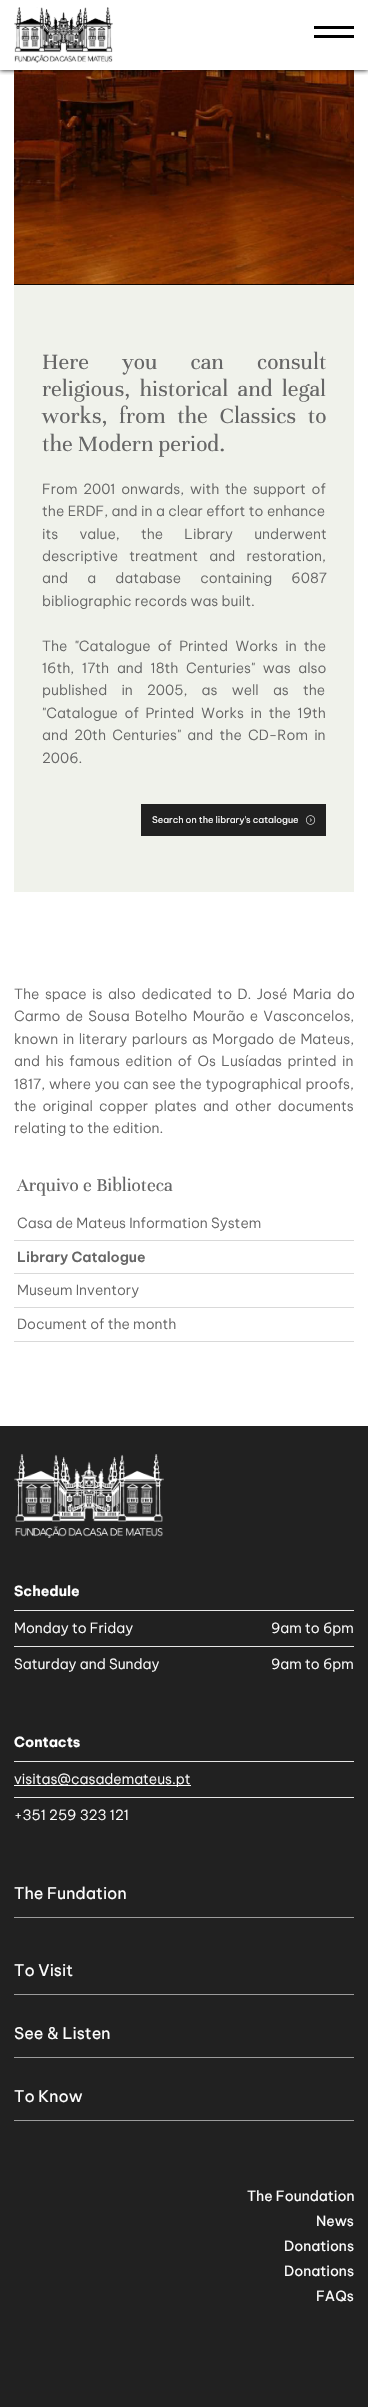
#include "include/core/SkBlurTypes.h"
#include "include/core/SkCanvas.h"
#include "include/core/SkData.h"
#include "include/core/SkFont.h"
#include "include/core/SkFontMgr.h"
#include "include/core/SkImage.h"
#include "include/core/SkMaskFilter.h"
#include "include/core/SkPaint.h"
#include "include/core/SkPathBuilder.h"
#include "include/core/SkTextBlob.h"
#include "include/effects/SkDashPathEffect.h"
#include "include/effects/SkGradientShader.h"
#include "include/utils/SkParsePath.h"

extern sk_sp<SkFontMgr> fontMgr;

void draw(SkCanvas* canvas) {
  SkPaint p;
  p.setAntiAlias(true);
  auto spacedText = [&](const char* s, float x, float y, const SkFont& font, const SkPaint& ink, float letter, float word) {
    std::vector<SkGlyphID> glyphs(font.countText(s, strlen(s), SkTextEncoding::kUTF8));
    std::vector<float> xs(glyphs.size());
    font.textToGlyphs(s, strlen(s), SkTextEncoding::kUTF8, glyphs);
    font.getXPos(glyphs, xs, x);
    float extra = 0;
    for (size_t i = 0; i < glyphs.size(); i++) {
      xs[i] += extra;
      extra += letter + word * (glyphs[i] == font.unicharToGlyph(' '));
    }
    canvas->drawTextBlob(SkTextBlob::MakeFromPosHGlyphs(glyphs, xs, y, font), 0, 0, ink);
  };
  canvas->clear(SK_ColorWHITE);
  p.setColor(SK_ColorBLACK);
  canvas->drawRect(SkRect::MakeLTRB(14, 284, 354, 285), p);
  canvas->drawImageRect(SkImages::DeferredFromEncodedData(SkData::MakeFromFileName("images/2.png")), SkRect::MakeLTRB(14, 70, 354, 285), SkSamplingOptions());
  canvas->save();
  canvas->clipRect(SkRect::MakeLTRB(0, 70, 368, 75));
  p.setMaskFilter(SkMaskFilter::MakeBlur(kNormal_SkBlurStyle, 2.5f));
  canvas->drawRect(SkRect::MakeLTRB(0, 0, 368, 70), p);
  p.setMaskFilter(nullptr);
  canvas->restore();
  canvas->drawImageRect(SkImages::DeferredFromEncodedData(SkData::MakeFromFileName("images/1.png")), SkRect::MakeLTRB(14, 7, 113, 63), SkSamplingOptions());
  canvas->drawRect(SkRect::MakeLTRB(314, 35, 354, 38), p);
  canvas->drawPath(SkPathBuilder().moveTo(315.5f, 26).lineTo(314, 26).lineTo(314, 29).lineTo(354, 29).lineTo(354, 26).close().detach(), p);
  p.setColor(SkColorSetRGB(240, 242, 235));
  canvas->drawRect(SkRect::MakeLTRB(14, 285, 354, 892), p);
  p.setColor(SkColorSetRGB(33, 33, 33));
  canvas->drawRect(SkRect::MakeLTRB(141, 804, 326, 836), p);
  canvas->drawImageRect(SkImages::DeferredFromEncodedData(SkData::MakeFromFileName("images/3.png")), SkRect::MakeLTRB(306, 815, 316, 825), SkSamplingOptions());
  p.setColor(SkColorSetRGB(217, 217, 217));
  canvas->drawRect(SkRect::MakeLTRB(14, 1240, 354, 1241), p);
  canvas->drawRect(SkRect::MakeLTRB(14, 1273, 354, 1274), p);
  canvas->drawRect(SkRect::MakeLTRB(14, 1307, 354, 1308), p);
  canvas->drawRect(SkRect::MakeLTRB(14, 1341, 354, 1342), p);
  p.setColor(SkColorSetRGB(33, 33, 33));
  canvas->drawRect(SkRect::MakeLTRB(0, 1426, 368, 2407), p);
  canvas->drawImageRect(SkImages::DeferredFromEncodedData(SkData::MakeFromFileName("images/4.png")), SkRect::MakeLTRB(14, 1454, 164, 1538), SkSamplingOptions());
  p.setColor(SkColorSetRGB(230, 230, 230));
  canvas->drawRect(SkRect::MakeLTRB(14, 1610, 354, 1611), p);
  canvas->drawRect(SkRect::MakeLTRB(14, 1646, 354, 1647), p);
  canvas->drawRect(SkRect::MakeLTRB(14, 1761, 354, 1762), p);
  p.setColor(SK_ColorWHITE);
  canvas->drawRect(SkRect::MakeLTRB(14, 1785, 191, 1786), p);
  p.setColor(SkColorSetRGB(230, 230, 230));
  canvas->drawRect(SkRect::MakeLTRB(14, 1797, 354, 1798), p);
  p.setColor(SkColorSetRGB(156, 156, 156));
  canvas->drawRect(SkRect::MakeLTRB(14, 1917, 354, 1918), p);
  canvas->drawRect(SkRect::MakeLTRB(14, 1994, 354, 1995), p);
  canvas->drawRect(SkRect::MakeLTRB(14, 2057, 354, 2058), p);
  canvas->drawRect(SkRect::MakeLTRB(14, 2120, 354, 2121), p);
  SkFont font1(fontMgr->matchFamilyStyle("Unna", SkFontStyle::Normal()), 23.75f);
  font1.setSubpixel(true);
  p.setColor(SkColorSetRGB(102, 102, 102));
  spacedText("Here you can consult", 42, 369, font1, p, 0, 28);
  spacedText("religious, historical and legal", 42, 396, font1, p, 0, 4);
  spacedText("works, from the Classics to", 42, 423, font1, p, 0, 6.5f);
  canvas->drawString("the Modern period.", 42, 451, font1, p);
  SkFont font2(fontMgr->matchFamilyStyle("Be Vietnam Pro", SkFontStyle(300, SkFontStyle::kNormal_Width, SkFontStyle::kUpright_Slant)), 14);
  font2.setSubpixel(true);
  spacedText("From 2001 onwards, with the support of", 42, 494, font2, p, 0, 2.5f);
  spacedText("the ERDF, and in a clear effort to enhance", 42, 516, font2, p, 0, 0.25f);
  spacedText("its value, the Library underwent", 42, 539, font2, p, 0, 18);
  spacedText("descriptive treatment and restoration,", 42, 561, font2, p, 0, 8);
  spacedText("and a database containing 6087", 42, 583, font2, p, 0, 16);
  canvas->drawString("bibliographic records was built.", 42, 606, font2, p);
  spacedText("The \"Catalogue of Printed Works in the", 42, 651, font2, p, 0, 4);
  spacedText("16th, 17th and 18th Centuries\" was also", 42, 673, font2, p, 0, 4.5f);
  spacedText("published in 2005, as well as the", 42, 695, font2, p, 0, 11);
  spacedText("\"Catalogue of Printed Works in the 19th", 42, 718, font2, p, 0, 3.5f);
  spacedText("and 20th Centuries\" and the CD-Rom in", 42, 740, font2, p, 0, 3);
  canvas->drawString("2006.", 42, 763, font2, p);
  SkFont font3(fontMgr->matchFamilyStyle("Be Vietnam Pro", SkFontStyle::Normal()), 9.1f);
  font3.setSubpixel(true);
  p.setColor(SK_ColorWHITE);
  canvas->drawString("Search on the library's catalogue", 152, 823, font3, p);
  p.setColor(SkColorSetRGB(102, 102, 102));
  spacedText("The space is also dedicated to D. José Maria do", 14, 999, font2, p, 0, 2.25f);
  spacedText("Carmo de Sousa Botelho Mourão e Vasconcelos,", 14, 1021, font2, p, 0, 2);
  spacedText("known in literary parlours as Morgado de Mateus,", 14, 1044, font2, p, 0, 1.25f);
  spacedText("and his famous edition of Os Lusíadas printed in", 14, 1066, font2, p, 0, 2.25f);
  spacedText("1817, where you can see the typographical proofs,", 14, 1089, font2, p, 0, 0.5f);
  spacedText("the original copper plates and other documents", 14, 1111, font2, p, 0, 3);
  canvas->drawString("relating to the edition.", 14, 1133, font2, p);
  SkFont font4(fontMgr->matchFamilyStyle("Unna", SkFontStyle::Normal()), 19.5f);
  font4.setSubpixel(true);
  canvas->drawString("Arquivo e Biblioteca", 17, 1191, font4, p);
  canvas->drawString("Casa de Mateus Information System", 17, 1228, font2, p);
  SkFont font5(fontMgr->matchFamilyStyle("Be Vietnam Pro", SkFontStyle(600, SkFontStyle::kNormal_Width, SkFontStyle::kUpright_Slant)), 14);
  font5.setSubpixel(true);
  canvas->drawString("Library Catalogue", 17, 1262, font5, p);
  canvas->drawString("Museum Inventory", 17, 1295, font2, p);
  canvas->drawString("Document of the month", 17, 1329, font2, p);
  SkFont font6(fontMgr->matchFamilyStyle("Be Vietnam Pro", SkFontStyle::Bold()), 14);
  font6.setSubpixel(true);
  p.setColor(SK_ColorWHITE);
  canvas->drawString("Schedule", 14, 1596, font6, p);
  canvas->drawString("Monday to Friday", 14, 1633, font2, p);
  canvas->drawString("9am to 6pm", 271, 1633, font2, p);
  canvas->drawString("Saturday and Sunday", 14, 1669, font2, p);
  canvas->drawString("9am to 6pm", 271, 1669, font2, p);
  canvas->drawString("Contacts", 14, 1747, font6, p);
  canvas->drawString("visitas@casademateus.pt", 14, 1784, font2, p);
  canvas->drawString("+351 259 323 121", 14, 1820, font2, p);
  SkFont font7(fontMgr->matchFamilyStyle("Be Vietnam Pro", SkFontStyle::Normal()), 16);
  font7.setSubpixel(true);
  canvas->drawString("The Fundation", 14, 1899, font7, p);
  canvas->drawString("To Visit", 14, 1976, font7, p);
  canvas->drawString("See & Listen", 14, 2039, font7, p);
  canvas->drawString("To Know", 14, 2102, font7, p);
  SkFont font8(fontMgr->matchFamilyStyle("Be Vietnam Pro", SkFontStyle::Normal()), 14);
  font8.setSubpixel(true);
  canvas->drawString("The Foundation", 247, 2201, font8, p);
  canvas->drawString("News", 316, 2226, font8, p);
  canvas->drawString("Donations", 284, 2251, font8, p);
  canvas->drawString("Donations", 284, 2276, font8, p);
  canvas->drawString("FAQs", 316, 2301, font8, p);
}
